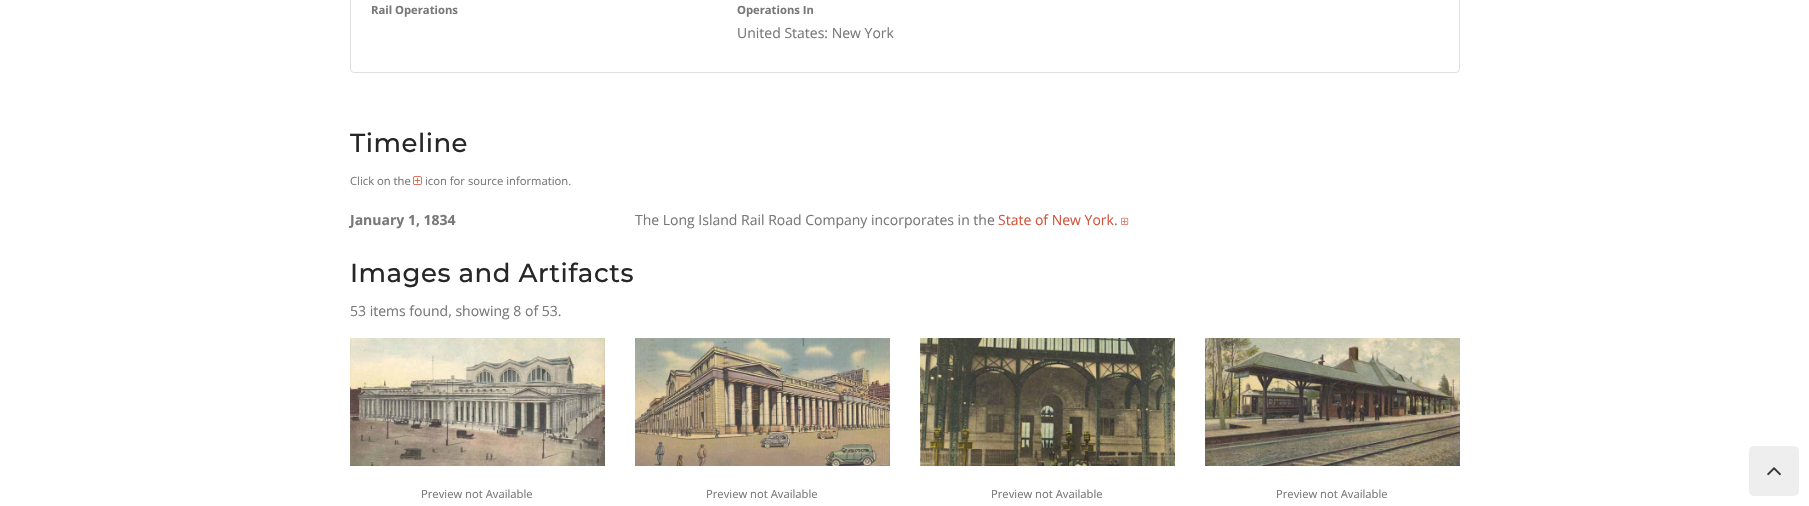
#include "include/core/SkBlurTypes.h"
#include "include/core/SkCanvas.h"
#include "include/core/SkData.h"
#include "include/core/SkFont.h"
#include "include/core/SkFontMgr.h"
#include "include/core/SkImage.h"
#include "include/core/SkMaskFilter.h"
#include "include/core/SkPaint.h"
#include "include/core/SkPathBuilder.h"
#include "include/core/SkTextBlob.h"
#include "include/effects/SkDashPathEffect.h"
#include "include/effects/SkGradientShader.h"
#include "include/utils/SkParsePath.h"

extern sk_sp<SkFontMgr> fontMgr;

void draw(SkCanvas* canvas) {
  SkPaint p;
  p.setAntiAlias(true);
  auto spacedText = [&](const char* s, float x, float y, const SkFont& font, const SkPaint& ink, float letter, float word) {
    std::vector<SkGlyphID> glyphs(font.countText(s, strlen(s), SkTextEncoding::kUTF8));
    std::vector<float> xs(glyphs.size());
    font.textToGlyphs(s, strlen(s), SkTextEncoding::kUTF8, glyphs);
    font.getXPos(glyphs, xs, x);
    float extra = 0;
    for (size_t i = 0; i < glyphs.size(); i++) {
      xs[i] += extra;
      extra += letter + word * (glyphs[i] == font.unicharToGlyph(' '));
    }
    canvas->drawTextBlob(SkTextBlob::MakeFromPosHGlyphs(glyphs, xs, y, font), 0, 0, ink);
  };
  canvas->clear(SK_ColorWHITE);
  p.setStyle(SkPaint::kStroke_Style);
  p.setStrokeWidth(1);
  p.setColor(SkColorSetRGB(223, 223, 223));
  canvas->drawRoundRect(SkRect::MakeLTRB(350.5f, -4.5f, 1459.5f, 72.5f), 3.5f, 3.5f, p);
  canvas->drawImageRect(SkImages::DeferredFromEncodedData(SkData::MakeFromFileName("images/1.png")), SkRect::MakeLTRB(413, 176, 422, 185), SkSamplingOptions());
  canvas->drawImageRect(SkImages::DeferredFromEncodedData(SkData::MakeFromFileName("images/2.png")), SkRect::MakeLTRB(1121, 217, 1129, 225), SkSamplingOptions());
  canvas->drawImageRect(SkImages::DeferredFromEncodedData(SkData::MakeFromFileName("images/3.png")), SkRect::MakeLTRB(350, 338, 605, 466), SkSamplingOptions());
  canvas->drawImageRect(SkImages::DeferredFromEncodedData(SkData::MakeFromFileName("images/4.png")), SkRect::MakeLTRB(635, 338, 890, 466), SkSamplingOptions());
  canvas->drawImageRect(SkImages::DeferredFromEncodedData(SkData::MakeFromFileName("images/5.png")), SkRect::MakeLTRB(920, 338, 1175, 466), SkSamplingOptions());
  canvas->drawImageRect(SkImages::DeferredFromEncodedData(SkData::MakeFromFileName("images/6.png")), SkRect::MakeLTRB(1205, 338, 1460, 466), SkSamplingOptions());
  p.setStyle(SkPaint::kFill_Style);
  p.setColor(SkColorSetRGB(238, 238, 238));
  canvas->drawRoundRect(SkRect::MakeLTRB(1749, 446, 1799, 496), 5, 5, p);
  canvas->drawImageRect(SkImages::DeferredFromEncodedData(SkData::MakeFromFileName("images/7.png")), SkRect::MakeLTRB(1767, 467, 1781, 476), SkSamplingOptions());
  SkFont font1(fontMgr->matchFamilyStyle("Open Sans", SkFontStyle::Bold()), 11.25f);
  font1.setSubpixel(true);
  p.setColor(SkColorSetRGB(120, 120, 120));
  canvas->drawString("Rail Operations", 371, 14, font1, p);
  canvas->drawString("Operations In", 737, 14, font1, p);
  SkFont font2(fontMgr->matchFamilyStyle("Open Sans", SkFontStyle::Normal()), 14);
  font2.setSubpixel(true);
  canvas->drawString("United States: New York", 737, 38, font2, p);
  SkFont font3(fontMgr->matchFamilyStyle("Montserrat", SkFontStyle(500, SkFontStyle::kNormal_Width, SkFontStyle::kUpright_Slant)), 26);
  font3.setSubpixel(true);
  p.setColor(SkColorSetRGB(39, 39, 39));
  spacedText("Timeline", 350, 152, font3, p, 0.5f, 0);
  SkFont font4(fontMgr->matchFamilyStyle("Open Sans", SkFontStyle::Normal()), 11.25f);
  font4.setSubpixel(true);
  p.setColor(SkColorSetRGB(120, 120, 120));
  canvas->drawString("Click on the", 350, 185, font4, p);
  canvas->drawString("icon for source information.", 425, 185, font4, p);
  SkFont font5(fontMgr->matchFamilyStyle("Open Sans", SkFontStyle::Bold()), 14);
  font5.setSubpixel(true);
  canvas->drawString("January 1, 1834", 350, 225, font5, p);
  canvas->drawString("The Long Island Rail Road Company incorporates in the", 635, 225, font2, p);
  p.setColor(SkColorSetRGB(210, 85, 62));
  canvas->drawString("State of New York", 998, 225, font2, p);
  p.setColor(SkColorSetRGB(120, 120, 120));
  canvas->drawString(".", 1114, 225, font2, p);
  p.setColor(SkColorSetRGB(39, 39, 39));
  spacedText("Images and Artifacts", 350, 282, font3, p, 0.5f, 0);
  p.setColor(SkColorSetRGB(120, 120, 120));
  canvas->drawString("53 items found, showing 8 of 53.", 350, 316, font2, p);
  canvas->drawString("Preview not Available", 421, 498, font4, p);
  canvas->drawString("Preview not Available", 706, 498, font4, p);
  canvas->drawString("Preview not Available", 991, 498, font4, p);
  canvas->drawString("Preview not Available", 1276, 498, font4, p);
}
